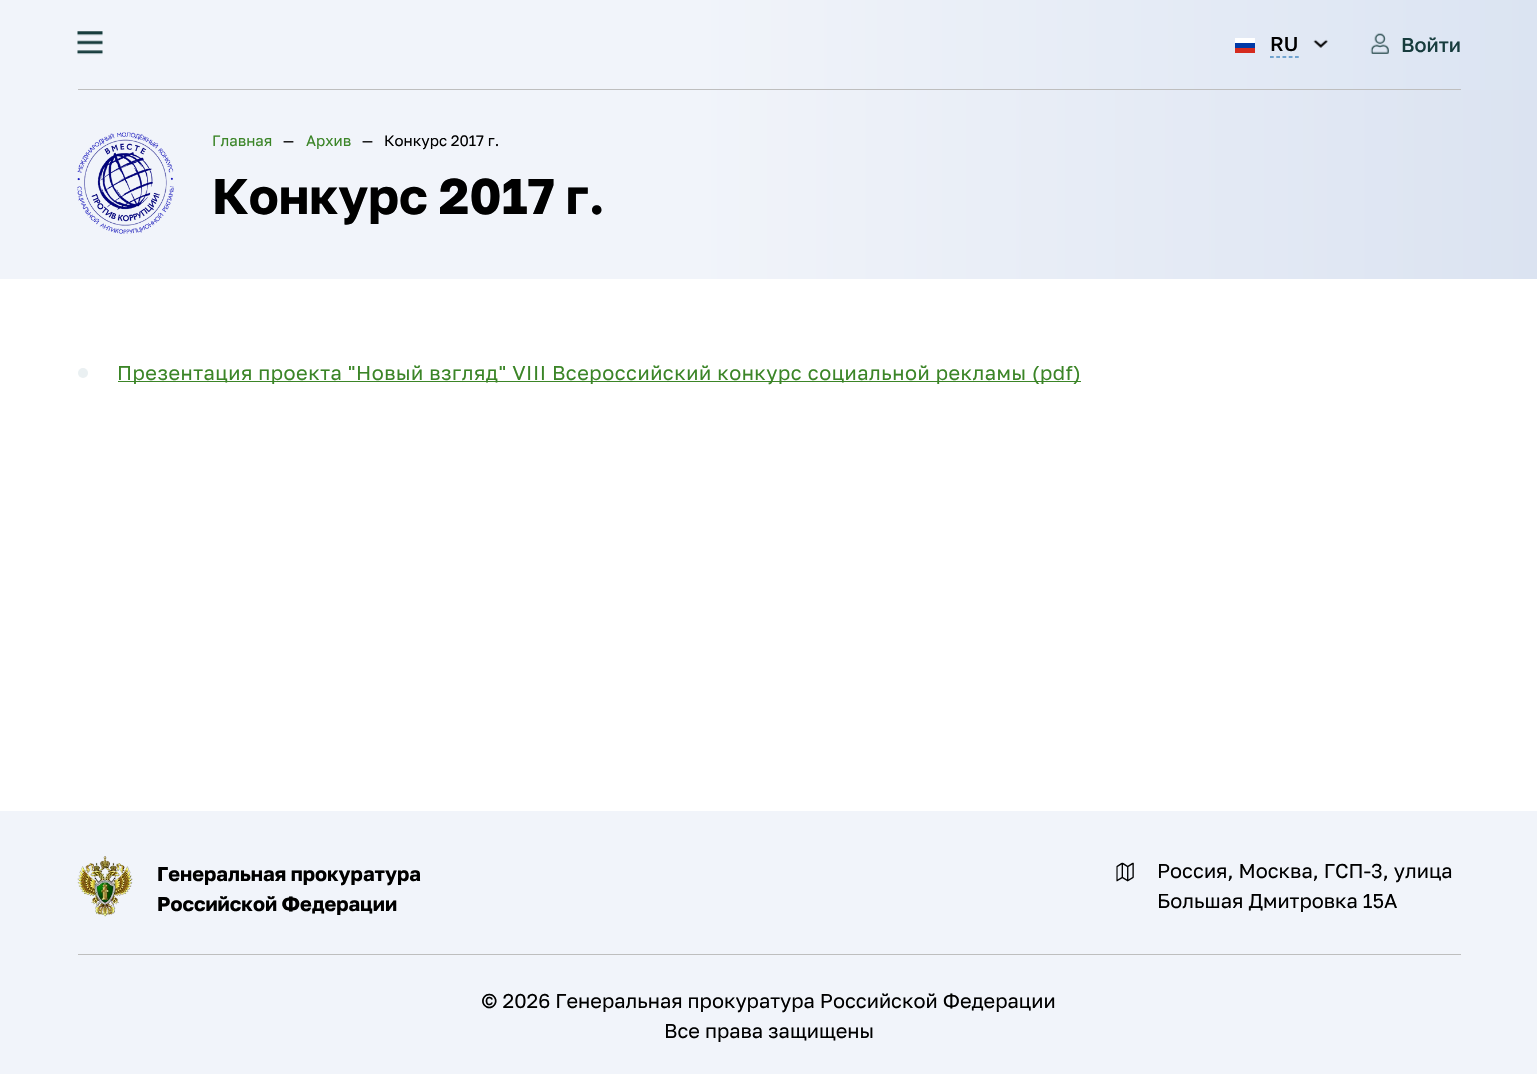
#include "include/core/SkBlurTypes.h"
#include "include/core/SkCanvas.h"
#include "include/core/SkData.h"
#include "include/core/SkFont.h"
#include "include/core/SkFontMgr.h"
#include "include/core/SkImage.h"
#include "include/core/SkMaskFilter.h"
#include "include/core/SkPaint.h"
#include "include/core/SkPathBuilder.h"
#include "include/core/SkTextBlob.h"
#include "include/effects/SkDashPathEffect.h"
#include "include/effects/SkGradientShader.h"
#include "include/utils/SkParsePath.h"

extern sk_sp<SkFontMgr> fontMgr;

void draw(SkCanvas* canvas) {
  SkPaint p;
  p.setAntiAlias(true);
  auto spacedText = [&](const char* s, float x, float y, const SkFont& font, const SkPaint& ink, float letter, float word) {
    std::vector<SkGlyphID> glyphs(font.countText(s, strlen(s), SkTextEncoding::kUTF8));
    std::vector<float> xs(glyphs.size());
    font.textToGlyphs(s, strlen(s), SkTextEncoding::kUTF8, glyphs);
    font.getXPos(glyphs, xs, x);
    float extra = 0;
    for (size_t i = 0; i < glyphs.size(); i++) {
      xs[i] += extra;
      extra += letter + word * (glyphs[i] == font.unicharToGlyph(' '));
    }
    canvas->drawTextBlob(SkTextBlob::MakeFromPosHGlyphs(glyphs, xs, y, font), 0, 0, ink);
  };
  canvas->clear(SK_ColorWHITE);
  {
    const SkColor colors[] = {SkColorSetRGB(241, 244, 250), SkColorSetRGB(219, 228, 242)};
    const float stops[] = {0.45f, 1};
    const SkPoint ends[] = {{0, 45}, {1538, 45}};
    p.setShader(SkGradientShader::MakeLinear(ends, colors, stops, 2, SkTileMode::kClamp));
    p.setAlpha(255);
  }
  canvas->drawRect(SkRect::MakeLTRB(0, 0, 1537, 90), p);
  p.setShader(nullptr);
  p.setColor(SkColorSetRGB(190, 190, 190));
  canvas->drawRect(SkRect::MakeLTRB(78, 89, 1461, 90), p);
  canvas->drawImageRect(SkImages::DeferredFromEncodedData(SkData::MakeFromFileName("images/1.png")), SkRect::MakeLTRB(77, 31, 103, 55), SkSamplingOptions());
  p.setColor(SK_ColorWHITE);
  canvas->drawRect(SkRect::MakeLTRB(1235, 38, 1255, 43), p);
  p.setColor(SkColorSetRGB(0, 57, 166));
  canvas->drawRect(SkRect::MakeLTRB(1235, 43, 1255, 48), p);
  p.setColor(SkColorSetRGB(213, 43, 30));
  canvas->drawRect(SkRect::MakeLTRB(1235, 48, 1255, 53), p);
  p.setStyle(SkPaint::kStroke_Style);
  p.setStrokeWidth(1.2f);
  p.setColor(SkColorSetRGB(0, 96, 172));
  p.setPathEffect(SkDashPathEffect::Make({{3.75f, 2.5f}}, 0));
  canvas->drawPath(SkPathBuilder().moveTo(1270, 57).lineTo(1299, 57).detach(), p);
  p.setPathEffect(nullptr);
  canvas->drawImageRect(SkImages::DeferredFromEncodedData(SkData::MakeFromFileName("images/2.png")), SkRect::MakeLTRB(1313, 39, 1328, 48), SkSamplingOptions());
  canvas->drawImageRect(SkImages::DeferredFromEncodedData(SkData::MakeFromFileName("images/3.png")), SkRect::MakeLTRB(1370, 33, 1389, 54), SkSamplingOptions());
  p.setStyle(SkPaint::kFill_Style);
  {
    const SkColor colors[] = {SkColorSetRGB(241, 244, 250), SkColorSetRGB(219, 227, 241)};
    const float stops[] = {0.45f, 1};
    const SkPoint ends[] = {{0, 139}, {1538, 139}};
    p.setShader(SkGradientShader::MakeLinear(ends, colors, stops, 2, SkTileMode::kClamp));
    p.setAlpha(255);
  }
  canvas->drawRect(SkRect::MakeLTRB(0, 90, 1537, 279), p);
  canvas->drawImageRect(SkImages::DeferredFromEncodedData(SkData::MakeFromFileName("images/4.png")), SkRect::MakeLTRB(77, 132, 174, 234), SkSamplingOptions());
  p.setShader(nullptr);
  p.setColor(SkColorSetRGB(234, 240, 242));
  canvas->drawCircle(83, 373, 5, p);
  p.setColor(SkColorSetRGB(59, 133, 39));
  canvas->drawRect(SkRect::MakeLTRB(118, 381, 1081, 382), p);
  p.setColor(SkColorSetRGB(241, 244, 250));
  canvas->drawRect(SkRect::MakeLTRB(0, 811, 1537, 1074), p);
  canvas->drawImageRect(SkImages::DeferredFromEncodedData(SkData::MakeFromFileName("images/5.png")), SkRect::MakeLTRB(77, 856, 133, 917), SkSamplingOptions());
  canvas->drawImageRect(SkImages::DeferredFromEncodedData(SkData::MakeFromFileName("images/6.png")), SkRect::MakeLTRB(1116, 862, 1134, 882), SkSamplingOptions());
  p.setColor(SkColorSetRGB(190, 190, 190));
  canvas->drawRect(SkRect::MakeLTRB(78, 954, 1461, 955), p);
  SkFont font1(fontMgr->matchFamilyStyle("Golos", SkFontStyle(500, SkFontStyle::kNormal_Width, SkFontStyle::kUpright_Slant)), 20);
  font1.setSubpixel(true);
  p.setColor(SK_ColorBLACK);
  canvas->drawString("RU", 1270, 51, font1, p);
  p.setColor(SkColorSetRGB(23, 60, 61));
  canvas->drawString("Войти", 1401, 52, font1, p);
  SkFont font2(fontMgr->matchFamilyStyle("Golos", SkFontStyle::Normal()), 15);
  font2.setSubpixel(true);
  p.setColor(SkColorSetRGB(59, 133, 39));
  canvas->drawString("Главная", 212, 146, font2, p);
  p.setColor(SK_ColorBLACK);
  canvas->drawString("—", 283, 146, font2, p);
  p.setColor(SkColorSetRGB(59, 133, 39));
  canvas->drawString("Архив", 306, 146, font2, p);
  p.setColor(SK_ColorBLACK);
  canvas->drawString("—", 362, 146, font2, p);
  canvas->drawString("Конкурс 2017 г.", 384, 146, font2, p);
  SkFont font3(fontMgr->matchFamilyStyle("Golos", SkFontStyle::Bold()), 50);
  font3.setSubpixel(true);
  canvas->drawString("Конкурс 2017 г.", 212, 214, font3, p);
  SkFont font4(fontMgr->matchFamilyStyle("Golos", SkFontStyle::Normal()), 20);
  font4.setSubpixel(true);
  p.setColor(SkColorSetRGB(59, 133, 39));
  spacedText("Презентация проекта \"Новый взгляд\" VIII Всероссийский конкурс социальной рекламы (pdf)", 117, 380, font4, p, 0.5f, 0);
  SkFont font5(fontMgr->matchFamilyStyle("Golos", SkFontStyle::Bold()), 20);
  font5.setSubpixel(true);
  p.setColor(SK_ColorBLACK);
  canvas->drawString("Генеральная прокуратура", 157, 881, font5, p);
  canvas->drawString("Российской Федерации", 157, 911, font5, p);
  canvas->drawString("Россия, Москва, ГСП-3, улица", 1157, 878, font4, p);
  canvas->drawString("Большая Дмитровка 15А", 1157, 908, font4, p);
  canvas->drawString("© 2026 Генеральная прокуратура Российской Федерации", 481, 1008, font4, p);
  canvas->drawString("Все права защищены", 664, 1038, font4, p);
}
